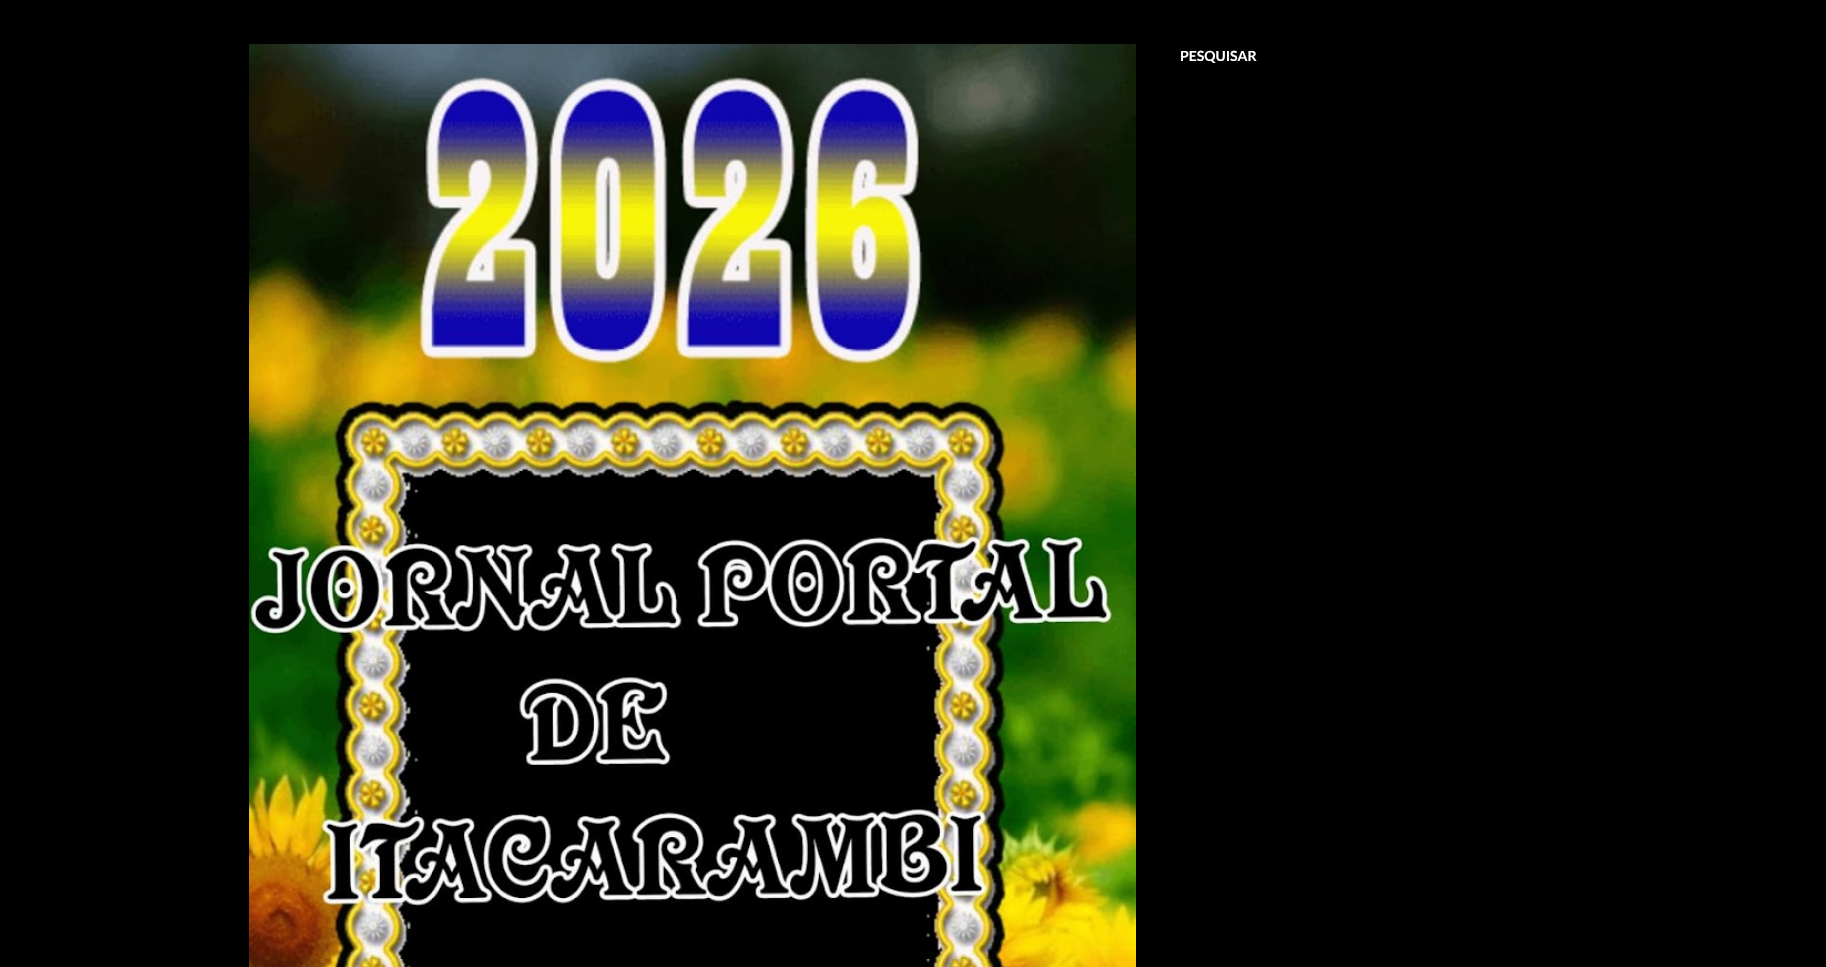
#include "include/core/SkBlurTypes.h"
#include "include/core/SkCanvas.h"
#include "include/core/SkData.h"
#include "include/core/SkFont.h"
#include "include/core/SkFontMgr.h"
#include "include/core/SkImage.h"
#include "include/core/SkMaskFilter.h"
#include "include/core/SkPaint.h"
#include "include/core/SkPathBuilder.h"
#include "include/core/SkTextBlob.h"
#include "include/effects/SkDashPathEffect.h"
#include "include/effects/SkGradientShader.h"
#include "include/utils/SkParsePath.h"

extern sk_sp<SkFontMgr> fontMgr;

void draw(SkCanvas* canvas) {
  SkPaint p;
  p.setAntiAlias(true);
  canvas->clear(SK_ColorBLACK);
  canvas->drawImageRect(SkImages::DeferredFromEncodedData(SkData::MakeFromFileName("images/1.png")), SkRect::MakeLTRB(249, 44, 1136, 967), SkSamplingOptions());
  SkFont font1(fontMgr->matchFamilyStyle("Lato", SkFontStyle::Bold()), 14);
  font1.setSubpixel(true);
  p.setColor(SK_ColorWHITE);
  canvas->drawString("PESQUISAR", 1180, 61, font1, p);
}
